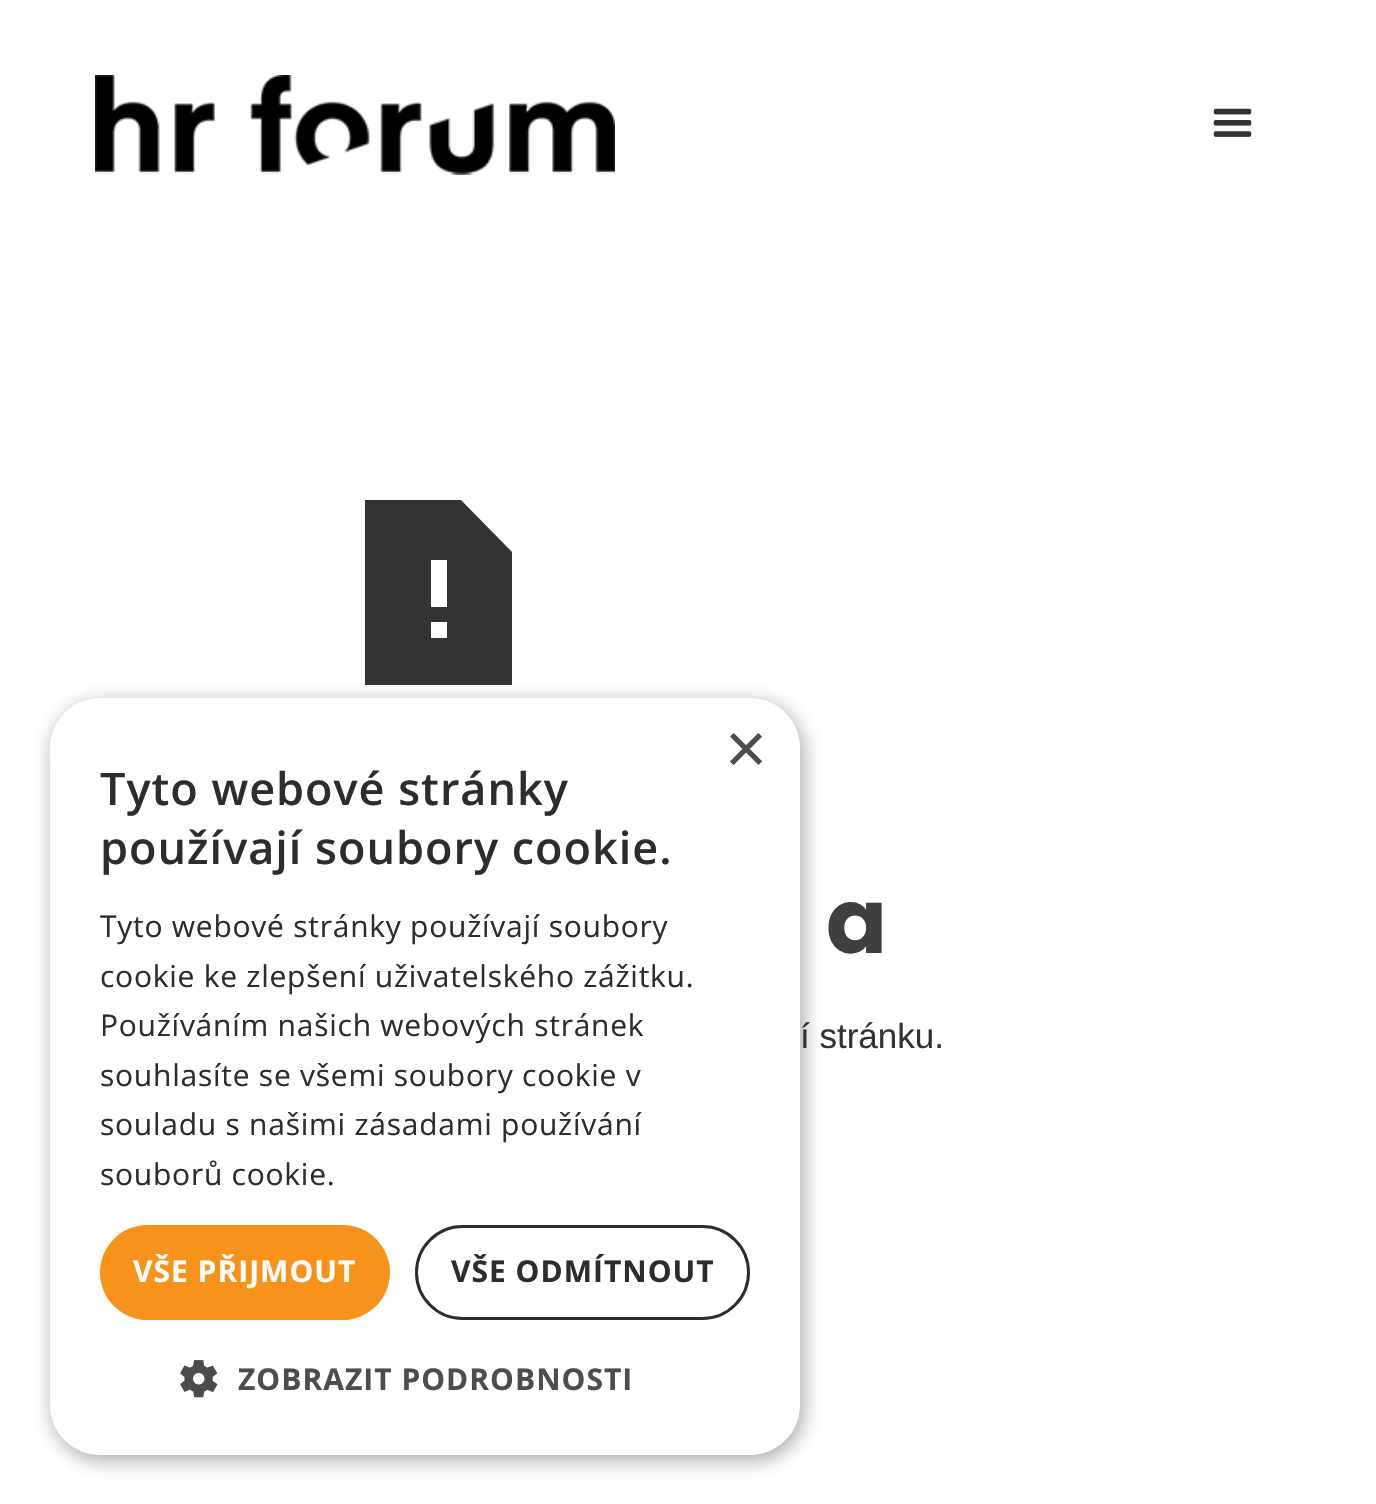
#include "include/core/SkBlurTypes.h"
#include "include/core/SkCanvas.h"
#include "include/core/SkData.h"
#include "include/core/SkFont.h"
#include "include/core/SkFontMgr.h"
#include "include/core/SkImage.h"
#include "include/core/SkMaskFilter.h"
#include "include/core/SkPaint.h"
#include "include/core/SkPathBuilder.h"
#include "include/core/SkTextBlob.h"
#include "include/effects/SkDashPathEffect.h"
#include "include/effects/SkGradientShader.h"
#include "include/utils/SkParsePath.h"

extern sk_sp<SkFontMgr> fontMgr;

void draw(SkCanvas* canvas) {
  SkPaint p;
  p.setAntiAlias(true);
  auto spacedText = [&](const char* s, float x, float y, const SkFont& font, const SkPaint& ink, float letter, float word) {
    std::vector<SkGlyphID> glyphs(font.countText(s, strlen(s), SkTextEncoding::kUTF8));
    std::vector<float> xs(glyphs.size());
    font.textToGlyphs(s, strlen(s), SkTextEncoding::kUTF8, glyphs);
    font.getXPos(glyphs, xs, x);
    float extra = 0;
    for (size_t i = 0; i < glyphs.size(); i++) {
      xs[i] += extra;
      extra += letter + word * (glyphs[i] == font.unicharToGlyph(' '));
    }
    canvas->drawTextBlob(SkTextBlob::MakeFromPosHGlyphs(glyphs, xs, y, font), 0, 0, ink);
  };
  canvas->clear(SK_ColorWHITE);
  canvas->drawImageRect(SkImages::DeferredFromEncodedData(SkData::MakeFromFileName("images/1.png")), SkRect::MakeLTRB(95, 75, 615, 175), SkSamplingOptions());
  canvas->drawImageRect(SkImages::DeferredFromEncodedData(SkData::MakeFromFileName("images/2.png")), SkRect::MakeLTRB(1213, 108, 1252, 137), SkSamplingOptions());
  p.setColor(SkColorSetRGB(51, 51, 51));
  canvas->drawPath(SkPathBuilder(SkPathFillType::kEvenOdd).moveTo(365, 500).lineTo(461, 500).lineTo(512, 552).lineTo(512, 685).lineTo(365, 685).close().moveTo(431, 560).lineTo(447, 560).lineTo(447, 607).lineTo(431, 607).close().moveTo(431, 622).lineTo(447, 622).lineTo(447, 638).lineTo(431, 638).close().detach(), p);
  p.setColor(SkColorSetARGB(89, 0, 0, 0));
  p.setMaskFilter(SkMaskFilter::MakeBlur(kNormal_SkBlurStyle, 10));
  canvas->drawRoundRect(SkRect::MakeLTRB(53, 703, 803, 1460), 50, 50, p);
  p.setMaskFilter(nullptr);
  p.setColor(SK_ColorWHITE);
  canvas->drawRoundRect(SkRect::MakeLTRB(50, 698, 800, 1455), 50, 50, p);
  p.setColor(SkColorSetRGB(247, 147, 26));
  canvas->drawRoundRect(SkRect::MakeLTRB(100, 1225, 390, 1320), 47.5f, 47.5f, p);
  p.setStyle(SkPaint::kStroke_Style);
  p.setStrokeWidth(3);
  p.setColor(SkColorSetRGB(45, 45, 45));
  canvas->drawRoundRect(SkRect::MakeLTRB(416.5f, 1226.5f, 748.5f, 1318.5f), 46, 46, p);
  canvas->drawImageRect(SkImages::DeferredFromEncodedData(SkData::MakeFromFileName("images/3.png")), SkRect::MakeLTRB(180, 1360, 218, 1398), SkSamplingOptions());
  SkFont font1(fontMgr->matchFamilyStyle("Liberation Sans", SkFontStyle::Normal()), 72);
  font1.setSubpixel(true);
  p.setStyle(SkPaint::kFill_Style);
  p.setColor(SkColorSetRGB(77, 77, 77));
  canvas->drawString("×", 725, 773, font1, p);
  SkFont font2(fontMgr->matchFamilyStyle("Open Sans", SkFontStyle(600, SkFontStyle::kNormal_Width, SkFontStyle::kUpright_Slant)), 45);
  font2.setSubpixel(true);
  p.setColor(SkColorSetRGB(45, 45, 45));
  spacedText("Tyto webové stránky", 100, 805, font2, p, 1, 0);
  spacedText("používají soubory cookie.", 100, 864, font2, p, 1, 0);
  SkFont font3(fontMgr->matchFamilyStyle("Open Sans", SkFontStyle::Normal()), 30);
  font3.setSubpixel(true);
  spacedText("Tyto webové stránky používají soubory", 100, 937, font3, p, 0.75f, 0);
  spacedText("cookie ke zlepšení uživatelského zážitku.", 100, 987, font3, p, 0.75f, 0);
  spacedText("Používáním našich webových stránek", 100, 1036, font3, p, 0.75f, 0);
  spacedText("souhlasíte se všemi soubory cookie v", 100, 1086, font3, p, 0.75f, 0);
  spacedText("souladu s našimi zásadami používání", 100, 1135, font3, p, 0.75f, 0);
  spacedText("souborů cookie.", 100, 1185, font3, p, 0.75f, 0);
  SkFont font4(fontMgr->matchFamilyStyle("Open Sans", SkFontStyle::Bold()), 30);
  font4.setSubpixel(true);
  p.setColor(SK_ColorWHITE);
  spacedText("VŠE PŘIJMOUT", 133, 1282, font4, p, 1, 0);
  p.setColor(SkColorSetRGB(45, 45, 45));
  spacedText("VŠE ODMÍTNOUT", 451, 1282, font4, p, 1, 0);
  p.setColor(SkColorSetRGB(77, 77, 77));
  spacedText("ZOBRAZIT PODROBNOSTI", 238, 1390, font4, p, 1, 0);
  SkFont font5(fontMgr->matchFamilyStyle("Poppins", SkFontStyle::Bold()), 90);
  font5.setSubpixel(true);
  p.setColor(SkColorSetRGB(63, 63, 63));
  spacedText("a", 826, 953, font5, p, -2, 0);
  SkFont font6(fontMgr->matchFamilyStyle("Liberation Sans", SkFontStyle::Normal()), 35);
  font6.setSubpixel(true);
  p.setColor(SkColorSetRGB(51, 51, 51));
  canvas->drawString("í stránku.", 800, 1048, font6, p);
}
